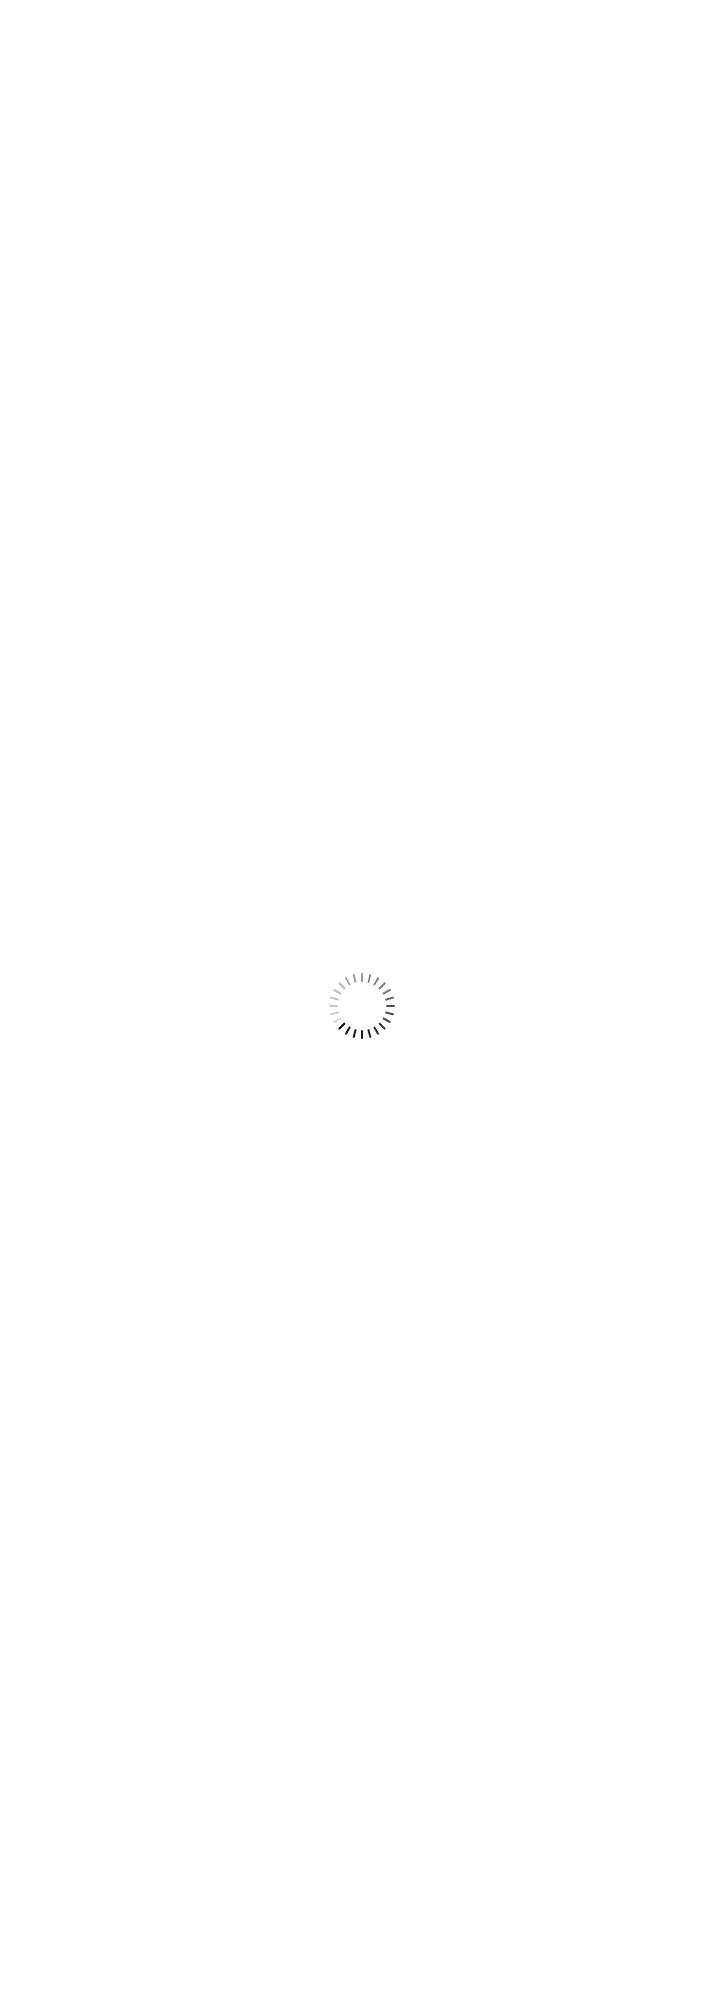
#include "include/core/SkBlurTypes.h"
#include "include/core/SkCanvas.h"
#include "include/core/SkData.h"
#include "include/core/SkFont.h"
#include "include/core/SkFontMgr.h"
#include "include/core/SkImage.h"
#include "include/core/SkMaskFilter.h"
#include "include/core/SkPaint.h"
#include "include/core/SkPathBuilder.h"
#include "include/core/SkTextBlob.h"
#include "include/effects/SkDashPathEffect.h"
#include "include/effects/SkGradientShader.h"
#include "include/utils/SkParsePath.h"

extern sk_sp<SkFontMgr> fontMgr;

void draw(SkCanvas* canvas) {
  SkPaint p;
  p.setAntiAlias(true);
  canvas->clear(SK_ColorWHITE);
  canvas->drawImageRect(SkImages::DeferredFromEncodedData(SkData::MakeFromFileName("images/1.png")), SkRect::MakeLTRB(329, 973, 395, 1039), SkSamplingOptions());
}
